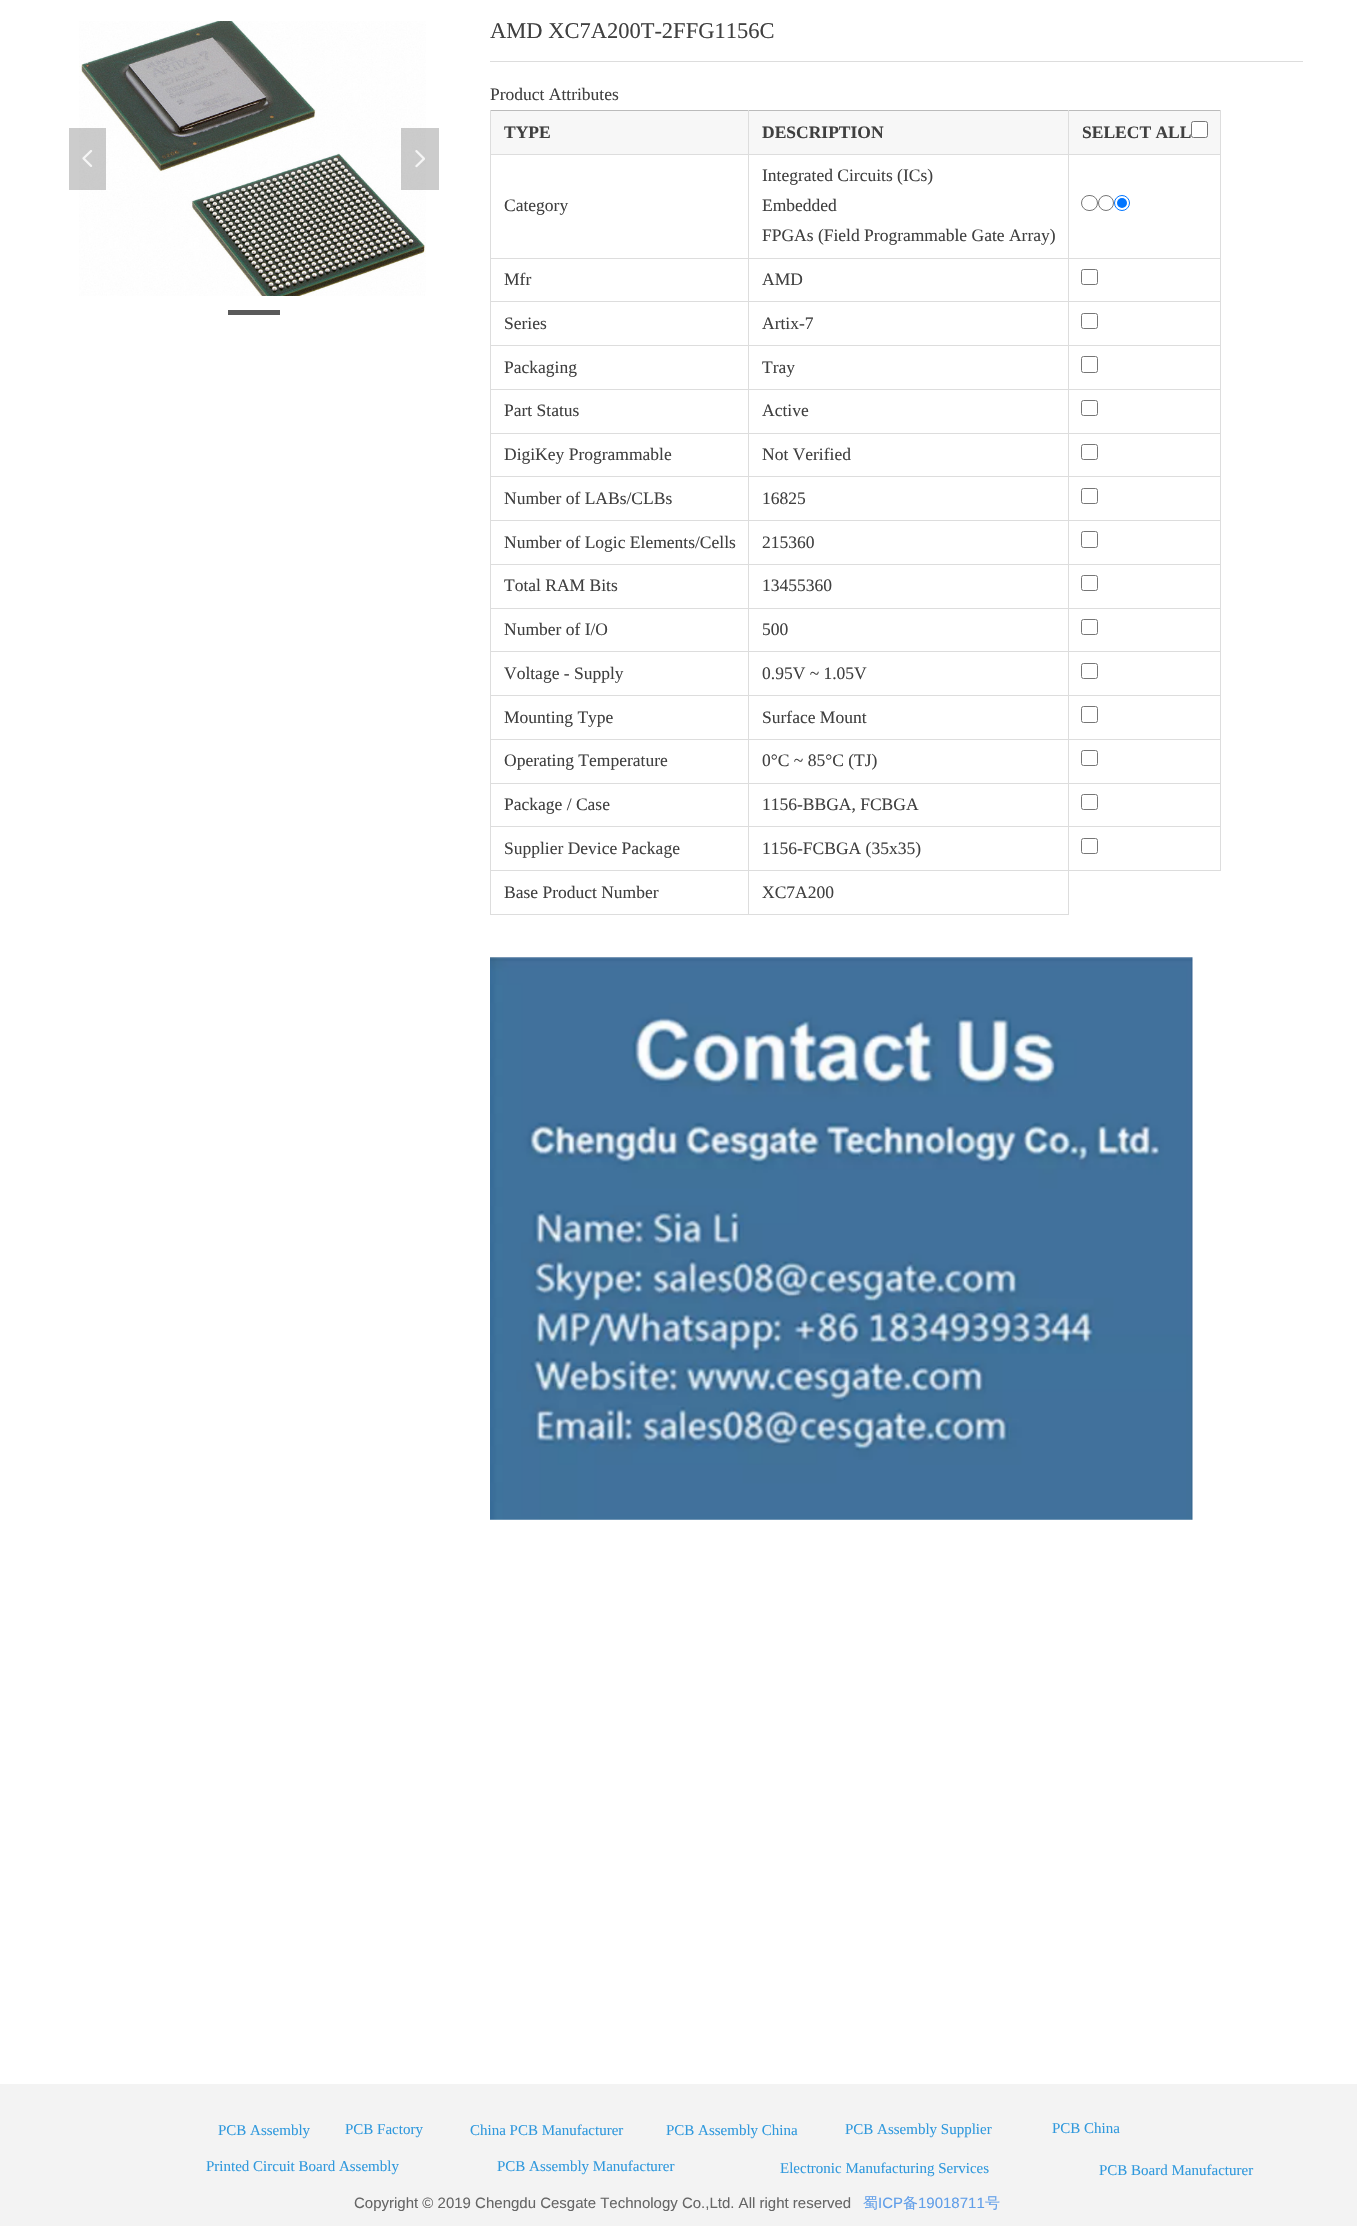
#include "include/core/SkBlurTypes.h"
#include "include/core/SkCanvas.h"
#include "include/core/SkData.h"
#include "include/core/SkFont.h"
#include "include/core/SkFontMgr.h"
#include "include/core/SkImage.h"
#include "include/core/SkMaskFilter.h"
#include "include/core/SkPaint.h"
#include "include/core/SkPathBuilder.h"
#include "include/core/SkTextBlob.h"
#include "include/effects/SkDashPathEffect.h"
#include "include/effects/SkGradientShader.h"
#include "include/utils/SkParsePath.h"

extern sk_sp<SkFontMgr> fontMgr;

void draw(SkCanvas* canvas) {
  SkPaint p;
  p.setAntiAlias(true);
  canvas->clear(SK_ColorWHITE);
  canvas->drawImageRect(SkImages::DeferredFromEncodedData(SkData::MakeFromFileName("images/1.png")), SkRect::MakeLTRB(79, 21, 426, 296), SkSamplingOptions());
  p.setColor(SkColorSetARGB(51, 0, 0, 0));
  canvas->drawRect(SkRect::MakeLTRB(69, 128, 106, 190), p);
  canvas->drawImageRect(SkImages::DeferredFromEncodedData(SkData::MakeFromFileName("images/2.png")), SkRect::MakeLTRB(82, 150, 93, 167), SkSamplingOptions());
  canvas->drawRect(SkRect::MakeLTRB(401, 128, 439, 190), p);
  canvas->drawImageRect(SkImages::DeferredFromEncodedData(SkData::MakeFromFileName("images/3.png")), SkRect::MakeLTRB(415, 150, 425, 168), SkSamplingOptions());
  p.setColor(SkColorSetRGB(90, 90, 90));
  canvas->drawRect(SkRect::MakeLTRB(228, 310, 280, 315), p);
  p.setColor(SkColorSetRGB(221, 221, 221));
  canvas->drawRect(SkRect::MakeLTRB(490, 61, 1303, 62), p);
  p.setColor(SkColorSetRGB(247, 247, 247));
  canvas->drawRect(SkRect::MakeLTRB(491, 111, 748, 154), p);
  p.setColor(SkColorSetRGB(187, 187, 187));
  canvas->drawRect(SkRect::MakeLTRB(490, 110, 1221, 111), p);
  p.setColor(SkColorSetRGB(221, 221, 221));
  canvas->drawRect(SkRect::MakeLTRB(1068, 154, 1221, 155), p);
  canvas->drawRect(SkRect::MakeLTRB(1068, 258, 1221, 259), p);
  canvas->drawRect(SkRect::MakeLTRB(1068, 301, 1221, 302), p);
  canvas->drawRect(SkRect::MakeLTRB(1068, 345, 1221, 346), p);
  canvas->drawRect(SkRect::MakeLTRB(1068, 389, 1221, 390), p);
  canvas->drawRect(SkRect::MakeLTRB(1068, 433, 1221, 434), p);
  canvas->drawRect(SkRect::MakeLTRB(1068, 476, 1221, 477), p);
  canvas->drawRect(SkRect::MakeLTRB(1068, 520, 1221, 521), p);
  canvas->drawRect(SkRect::MakeLTRB(1068, 564, 1221, 565), p);
  canvas->drawRect(SkRect::MakeLTRB(1068, 608, 1221, 609), p);
  canvas->drawRect(SkRect::MakeLTRB(1068, 651, 1221, 652), p);
  canvas->drawRect(SkRect::MakeLTRB(1068, 695, 1221, 696), p);
  canvas->drawRect(SkRect::MakeLTRB(1068, 739, 1221, 740), p);
  canvas->drawRect(SkRect::MakeLTRB(1068, 783, 1221, 784), p);
  canvas->drawRect(SkRect::MakeLTRB(1068, 826, 1221, 827), p);
  canvas->drawRect(SkRect::MakeLTRB(1220, 826, 1221, 871), p);
  canvas->drawRect(SkRect::MakeLTRB(748, 870, 1069, 871), p);
  canvas->drawRect(SkRect::MakeLTRB(1068, 870, 1069, 915), p);
  canvas->drawRect(SkRect::MakeLTRB(1068, 870, 1221, 871), p);
  canvas->drawRect(SkRect::MakeLTRB(1068, 826, 1069, 871), p);
  canvas->drawRect(SkRect::MakeLTRB(748, 826, 1069, 827), p);
  canvas->drawRect(SkRect::MakeLTRB(1068, 783, 1069, 828), p);
  canvas->drawRect(SkRect::MakeLTRB(748, 783, 1069, 784), p);
  canvas->drawRect(SkRect::MakeLTRB(1068, 739, 1069, 784), p);
  canvas->drawRect(SkRect::MakeLTRB(748, 739, 1069, 740), p);
  canvas->drawRect(SkRect::MakeLTRB(1068, 695, 1069, 740), p);
  canvas->drawRect(SkRect::MakeLTRB(748, 695, 1069, 696), p);
  canvas->drawRect(SkRect::MakeLTRB(1068, 651, 1069, 696), p);
  canvas->drawRect(SkRect::MakeLTRB(748, 651, 1069, 652), p);
  canvas->drawRect(SkRect::MakeLTRB(1068, 608, 1069, 653), p);
  canvas->drawRect(SkRect::MakeLTRB(748, 608, 1069, 609), p);
  canvas->drawRect(SkRect::MakeLTRB(1068, 564, 1069, 609), p);
  canvas->drawRect(SkRect::MakeLTRB(748, 564, 1069, 565), p);
  canvas->drawRect(SkRect::MakeLTRB(1068, 520, 1069, 565), p);
  canvas->drawRect(SkRect::MakeLTRB(748, 520, 1069, 521), p);
  canvas->drawRect(SkRect::MakeLTRB(1068, 476, 1069, 521), p);
  canvas->drawRect(SkRect::MakeLTRB(748, 476, 1069, 477), p);
  canvas->drawRect(SkRect::MakeLTRB(1068, 433, 1069, 478), p);
  canvas->drawRect(SkRect::MakeLTRB(748, 433, 1069, 434), p);
  canvas->drawRect(SkRect::MakeLTRB(1068, 389, 1069, 434), p);
  canvas->drawRect(SkRect::MakeLTRB(748, 389, 1069, 390), p);
  canvas->drawRect(SkRect::MakeLTRB(1068, 345, 1069, 390), p);
  canvas->drawRect(SkRect::MakeLTRB(748, 345, 1069, 346), p);
  canvas->drawRect(SkRect::MakeLTRB(1068, 301, 1069, 346), p);
  canvas->drawRect(SkRect::MakeLTRB(748, 301, 1069, 302), p);
  canvas->drawRect(SkRect::MakeLTRB(1068, 258, 1069, 303), p);
  canvas->drawRect(SkRect::MakeLTRB(748, 258, 1069, 259), p);
  canvas->drawRect(SkRect::MakeLTRB(1068, 154, 1069, 259), p);
  canvas->drawRect(SkRect::MakeLTRB(748, 154, 1069, 155), p);
  canvas->drawRect(SkRect::MakeLTRB(748, 914, 1069, 915), p);
  canvas->drawRect(SkRect::MakeLTRB(748, 870, 749, 915), p);
  canvas->drawRect(SkRect::MakeLTRB(490, 870, 749, 871), p);
  canvas->drawRect(SkRect::MakeLTRB(748, 826, 749, 871), p);
  canvas->drawRect(SkRect::MakeLTRB(490, 826, 749, 827), p);
  canvas->drawRect(SkRect::MakeLTRB(748, 783, 749, 828), p);
  canvas->drawRect(SkRect::MakeLTRB(490, 783, 749, 784), p);
  canvas->drawRect(SkRect::MakeLTRB(748, 739, 749, 784), p);
  canvas->drawRect(SkRect::MakeLTRB(490, 739, 749, 740), p);
  canvas->drawRect(SkRect::MakeLTRB(748, 695, 749, 740), p);
  canvas->drawRect(SkRect::MakeLTRB(490, 695, 749, 696), p);
  canvas->drawRect(SkRect::MakeLTRB(748, 651, 749, 696), p);
  canvas->drawRect(SkRect::MakeLTRB(490, 651, 749, 652), p);
  canvas->drawRect(SkRect::MakeLTRB(748, 608, 749, 653), p);
  canvas->drawRect(SkRect::MakeLTRB(490, 608, 749, 609), p);
  canvas->drawRect(SkRect::MakeLTRB(748, 564, 749, 609), p);
  canvas->drawRect(SkRect::MakeLTRB(490, 564, 749, 565), p);
  canvas->drawRect(SkRect::MakeLTRB(748, 520, 749, 565), p);
  canvas->drawRect(SkRect::MakeLTRB(490, 520, 749, 521), p);
  canvas->drawRect(SkRect::MakeLTRB(748, 476, 749, 521), p);
  canvas->drawRect(SkRect::MakeLTRB(490, 476, 749, 477), p);
  canvas->drawRect(SkRect::MakeLTRB(748, 433, 749, 478), p);
  canvas->drawRect(SkRect::MakeLTRB(490, 433, 749, 434), p);
  canvas->drawRect(SkRect::MakeLTRB(748, 389, 749, 434), p);
  canvas->drawRect(SkRect::MakeLTRB(490, 389, 749, 390), p);
  canvas->drawRect(SkRect::MakeLTRB(748, 345, 749, 390), p);
  canvas->drawRect(SkRect::MakeLTRB(490, 345, 749, 346), p);
  canvas->drawRect(SkRect::MakeLTRB(748, 301, 749, 346), p);
  canvas->drawRect(SkRect::MakeLTRB(490, 301, 749, 302), p);
  canvas->drawRect(SkRect::MakeLTRB(748, 258, 749, 303), p);
  canvas->drawRect(SkRect::MakeLTRB(490, 258, 749, 259), p);
  canvas->drawRect(SkRect::MakeLTRB(748, 154, 749, 259), p);
  canvas->drawRect(SkRect::MakeLTRB(490, 154, 749, 155), p);
  canvas->drawRect(SkRect::MakeLTRB(748, 110, 749, 155), p);
  canvas->drawRect(SkRect::MakeLTRB(490, 914, 749, 915), p);
  canvas->drawRect(SkRect::MakeLTRB(490, 870, 491, 915), p);
  canvas->drawRect(SkRect::MakeLTRB(490, 826, 491, 871), p);
  canvas->drawRect(SkRect::MakeLTRB(490, 783, 491, 828), p);
  canvas->drawRect(SkRect::MakeLTRB(490, 739, 491, 784), p);
  canvas->drawRect(SkRect::MakeLTRB(490, 695, 491, 740), p);
  canvas->drawRect(SkRect::MakeLTRB(490, 651, 491, 696), p);
  canvas->drawRect(SkRect::MakeLTRB(490, 608, 491, 653), p);
  canvas->drawRect(SkRect::MakeLTRB(490, 564, 491, 609), p);
  canvas->drawRect(SkRect::MakeLTRB(490, 520, 491, 565), p);
  canvas->drawRect(SkRect::MakeLTRB(490, 476, 491, 521), p);
  canvas->drawRect(SkRect::MakeLTRB(490, 433, 491, 478), p);
  canvas->drawRect(SkRect::MakeLTRB(490, 389, 491, 434), p);
  canvas->drawRect(SkRect::MakeLTRB(490, 345, 491, 390), p);
  canvas->drawRect(SkRect::MakeLTRB(490, 301, 491, 346), p);
  canvas->drawRect(SkRect::MakeLTRB(490, 258, 491, 303), p);
  canvas->drawRect(SkRect::MakeLTRB(490, 154, 491, 259), p);
  canvas->drawRect(SkRect::MakeLTRB(490, 110, 491, 155), p);
  p.setColor(SkColorSetRGB(247, 247, 247));
  canvas->drawRect(SkRect::MakeLTRB(749, 111, 1068, 154), p);
  p.setColor(SkColorSetRGB(221, 221, 221));
  canvas->drawRect(SkRect::MakeLTRB(1068, 110, 1069, 155), p);
  p.setColor(SkColorSetRGB(247, 247, 247));
  canvas->drawRect(SkRect::MakeLTRB(1069, 111, 1220, 154), p);
  p.setColor(SkColorSetRGB(221, 221, 221));
  canvas->drawRect(SkRect::MakeLTRB(1220, 783, 1221, 828), p);
  canvas->drawRect(SkRect::MakeLTRB(1220, 739, 1221, 784), p);
  canvas->drawRect(SkRect::MakeLTRB(1220, 695, 1221, 740), p);
  canvas->drawRect(SkRect::MakeLTRB(1220, 651, 1221, 696), p);
  canvas->drawRect(SkRect::MakeLTRB(1220, 608, 1221, 653), p);
  canvas->drawRect(SkRect::MakeLTRB(1220, 564, 1221, 609), p);
  canvas->drawRect(SkRect::MakeLTRB(1220, 520, 1221, 565), p);
  canvas->drawRect(SkRect::MakeLTRB(1220, 476, 1221, 521), p);
  canvas->drawRect(SkRect::MakeLTRB(1220, 433, 1221, 478), p);
  canvas->drawRect(SkRect::MakeLTRB(1220, 389, 1221, 434), p);
  canvas->drawRect(SkRect::MakeLTRB(1220, 345, 1221, 390), p);
  canvas->drawRect(SkRect::MakeLTRB(1220, 301, 1221, 346), p);
  canvas->drawRect(SkRect::MakeLTRB(1220, 258, 1221, 303), p);
  canvas->drawRect(SkRect::MakeLTRB(1220, 154, 1221, 259), p);
  canvas->drawRect(SkRect::MakeLTRB(1220, 110, 1221, 155), p);
  p.setColor(SK_ColorWHITE);
  canvas->drawRoundRect(SkRect::MakeLTRB(1191.5f, 121.5f, 1207.5f, 137.5f), 2, 2, p);
  p.setStyle(SkPaint::kStroke_Style);
  p.setStrokeWidth(1);
  p.setColor(SkColorSetRGB(118, 118, 118));
  canvas->drawRoundRect(SkRect::MakeLTRB(1191.5f, 121.5f, 1207.5f, 137.5f), 2, 2, p);
  canvas->drawRoundRect(SkRect::MakeLTRB(1081.5f, 195.5f, 1097.5f, 210.5f), 7.5f, 7.5f, p);
  canvas->drawCircle(1106, 203, 7.5f, p);
  p.setColor(SkColorSetRGB(0, 117, 255));
  canvas->drawCircle(1122, 203, 7.5f, p);
  p.setStyle(SkPaint::kFill_Style);
  canvas->drawCircle(1122, 203, 5, p);
  p.setStyle(SkPaint::kStroke_Style);
  p.setColor(SkColorSetRGB(118, 118, 118));
  canvas->drawRoundRect(SkRect::MakeLTRB(1081.5f, 269.5f, 1097.5f, 284.5f), 2, 2, p);
  canvas->drawRoundRect(SkRect::MakeLTRB(1081.5f, 313.5f, 1097.5f, 328.5f), 2, 2, p);
  canvas->drawRoundRect(SkRect::MakeLTRB(1081.5f, 356.5f, 1097.5f, 372.5f), 2, 2, p);
  canvas->drawRoundRect(SkRect::MakeLTRB(1081.5f, 400.5f, 1097.5f, 415.5f), 2, 2, p);
  canvas->drawRoundRect(SkRect::MakeLTRB(1081.5f, 444.5f, 1097.5f, 459.5f), 2, 2, p);
  canvas->drawRoundRect(SkRect::MakeLTRB(1081.5f, 488.5f, 1097.5f, 503.5f), 2, 2, p);
  canvas->drawRoundRect(SkRect::MakeLTRB(1081.5f, 531.5f, 1097.5f, 547.5f), 2, 2, p);
  canvas->drawRoundRect(SkRect::MakeLTRB(1081.5f, 575.5f, 1097.5f, 590.5f), 2, 2, p);
  canvas->drawRoundRect(SkRect::MakeLTRB(1081.5f, 619.5f, 1097.5f, 634.5f), 2, 2, p);
  canvas->drawRoundRect(SkRect::MakeLTRB(1081.5f, 663.5f, 1097.5f, 678.5f), 2, 2, p);
  canvas->drawRoundRect(SkRect::MakeLTRB(1081.5f, 706.5f, 1097.5f, 722.5f), 2, 2, p);
  canvas->drawRoundRect(SkRect::MakeLTRB(1081.5f, 750.5f, 1097.5f, 765.5f), 2, 2, p);
  canvas->drawRoundRect(SkRect::MakeLTRB(1081.5f, 794.5f, 1097.5f, 809.5f), 2, 2, p);
  canvas->drawRoundRect(SkRect::MakeLTRB(1081.5f, 838.5f, 1097.5f, 853.5f), 2, 2, p);
  canvas->drawImageRect(SkImages::DeferredFromEncodedData(SkData::MakeFromFileName("images/4.png")), SkRect::MakeLTRB(490, 957, 1193, 1520), SkSamplingOptions());
  p.setStyle(SkPaint::kFill_Style);
  p.setColor(SkColorSetRGB(243, 243, 243));
  canvas->drawRect(SkRect::MakeLTRB(0, 2084, 1357, 2226), p);
  SkFont font1(fontMgr->matchFamilyStyle("Liberation Serif", SkFontStyle::Normal()), 22.5f);
  font1.setSubpixel(true);
  p.setColor(SkColorSetRGB(64, 64, 64));
  canvas->drawString("AMD XC7A200T-2FFG1156C", 490, 38, font1, p);
  SkFont font2(fontMgr->matchFamilyStyle("Liberation Serif", SkFontStyle::Normal()), 17.5f);
  font2.setSubpixel(true);
  canvas->drawString("Product Attributes", 490, 100, font2, p);
  SkFont font3(fontMgr->matchFamilyStyle("Liberation Serif", SkFontStyle::Bold()), 17.5f);
  font3.setSubpixel(true);
  canvas->drawString("TYPE", 504, 138, font3, p);
  canvas->drawString("DESCRIPTION", 762, 138, font3, p);
  canvas->drawString("SELECT ALL", 1082, 138, font3, p);
  canvas->drawString("Category", 504, 211, font2, p);
  canvas->drawString("Integrated Circuits (ICs)", 762, 181, font2, p);
  canvas->drawString("Embedded", 762, 211, font2, p);
  canvas->drawString("FPGAs (Field Programmable Gate Array)", 762, 241, font2, p);
  canvas->drawString("Mfr", 504, 285, font2, p);
  canvas->drawString("AMD", 762, 285, font2, p);
  canvas->drawString("Series", 504, 329, font2, p);
  canvas->drawString("Artix-7", 762, 329, font2, p);
  canvas->drawString("Packaging", 504, 373, font2, p);
  canvas->drawString("Tray", 762, 373, font2, p);
  canvas->drawString("Part Status", 504, 416, font2, p);
  canvas->drawString("Active", 762, 416, font2, p);
  canvas->drawString("DigiKey Programmable", 504, 460, font2, p);
  canvas->drawString("Not Verified", 762, 460, font2, p);
  canvas->drawString("Number of LABs/CLBs", 504, 504, font2, p);
  canvas->drawString("16825", 762, 504, font2, p);
  canvas->drawString("Number of Logic Elements/Cells", 504, 548, font2, p);
  canvas->drawString("215360", 762, 548, font2, p);
  canvas->drawString("Total RAM Bits", 504, 591, font2, p);
  canvas->drawString("13455360", 762, 591, font2, p);
  canvas->drawString("Number of I/O", 504, 635, font2, p);
  canvas->drawString("500", 762, 635, font2, p);
  canvas->drawString("Voltage - Supply", 504, 679, font2, p);
  canvas->drawString("0.95V ~ 1.05V", 762, 679, font2, p);
  canvas->drawString("Mounting Type", 504, 723, font2, p);
  canvas->drawString("Surface Mount", 762, 723, font2, p);
  canvas->drawString("Operating Temperature", 504, 766, font2, p);
  canvas->drawString("0°C ~ 85°C (TJ)", 762, 766, font2, p);
  canvas->drawString("Package / Case", 504, 810, font2, p);
  canvas->drawString("1156-BBGA, FCBGA", 762, 810, font2, p);
  canvas->drawString("Supplier Device Package", 504, 854, font2, p);
  canvas->drawString("1156-FCBGA (35x35)", 762, 854, font2, p);
  canvas->drawString("Base Product Number", 504, 898, font2, p);
  canvas->drawString("XC7A200", 762, 898, font2, p);
  SkFont font4(fontMgr->matchFamilyStyle("Liberation Serif", SkFontStyle::Normal()), 15);
  font4.setSubpixel(true);
  p.setColor(SkColorSetRGB(48, 153, 221));
  canvas->drawString("PCB Assembly", 218, 2135, font4, p);
  canvas->drawString("PCB Factory", 345, 2134, font4, p);
  canvas->drawString("China PCB Manufacturer", 470, 2135, font4, p);
  canvas->drawString("PCB Assembly China", 666, 2135, font4, p);
  canvas->drawString("PCB Assembly Supplier", 845, 2134, font4, p);
  canvas->drawString("PCB China", 1052, 2133, font4, p);
  canvas->drawString("Printed Circuit Board Assembly", 206, 2171, font4, p);
  canvas->drawString("PCB Assembly Manufacturer", 497, 2171, font4, p);
  canvas->drawString("Electronic Manufacturing Services", 780, 2173, font4, p);
  canvas->drawString("PCB Board Manufacturer", 1099, 2175, font4, p);
  SkFont font5(fontMgr->matchFamilyStyle("Liberation Sans", SkFontStyle::Normal()), 15);
  font5.setSubpixel(true);
  p.setColor(SkColorSetRGB(102, 102, 102));
  canvas->drawString("Copyright © 2019 Chengdu Cesgate Technology Co.,Ltd. All right reserved", 354, 2208, font5, p);
  SkFont font6(fontMgr->matchFamilyStyle("WenQuanYi Zen Hei", SkFontStyle(500, SkFontStyle::kNormal_Width, SkFontStyle::kUpright_Slant)), 15);
  font6.setSubpixel(true);
  p.setColor(SkColorSetRGB(96, 158, 233));
  canvas->drawString("蜀", 863, 2208, font6, p);
  canvas->drawString("ICP", 878, 2208, font5, p);
  canvas->drawString("备", 903, 2208, font6, p);
  canvas->drawString("19018711", 918, 2208, font5, p);
  canvas->drawString("号", 985, 2208, font6, p);
}
